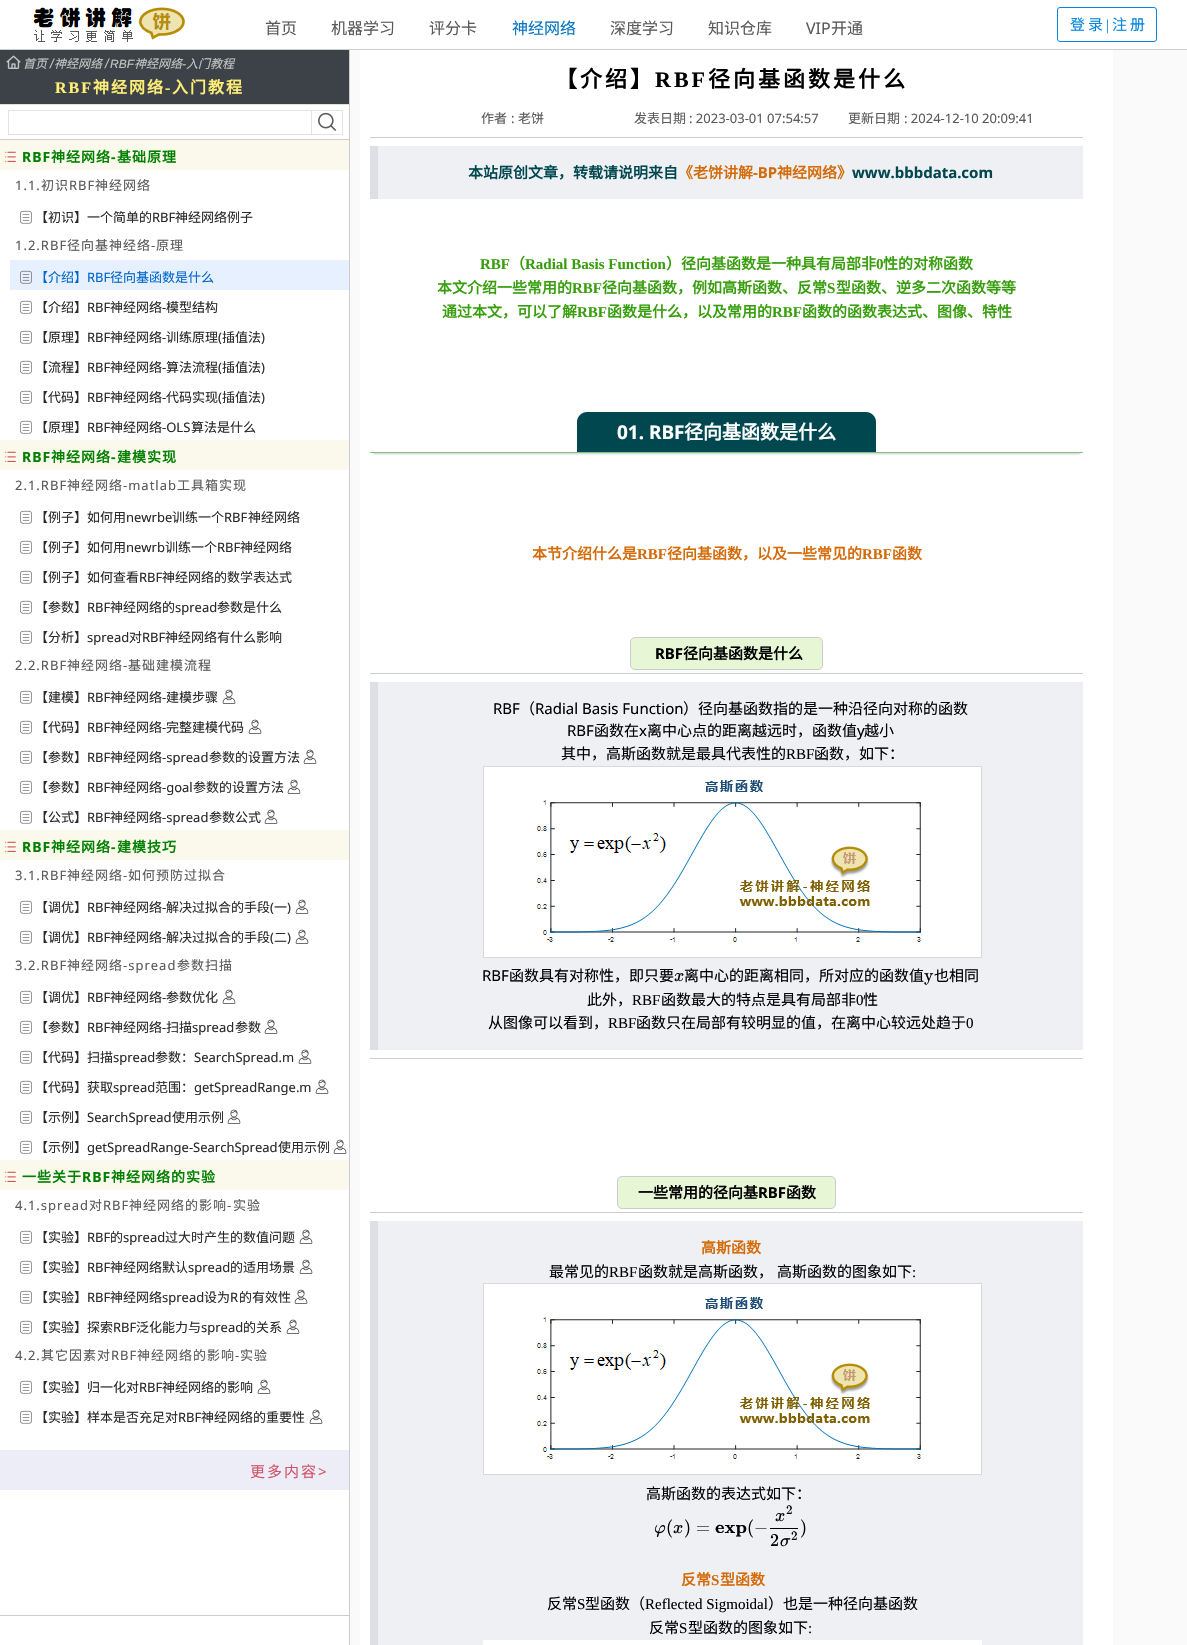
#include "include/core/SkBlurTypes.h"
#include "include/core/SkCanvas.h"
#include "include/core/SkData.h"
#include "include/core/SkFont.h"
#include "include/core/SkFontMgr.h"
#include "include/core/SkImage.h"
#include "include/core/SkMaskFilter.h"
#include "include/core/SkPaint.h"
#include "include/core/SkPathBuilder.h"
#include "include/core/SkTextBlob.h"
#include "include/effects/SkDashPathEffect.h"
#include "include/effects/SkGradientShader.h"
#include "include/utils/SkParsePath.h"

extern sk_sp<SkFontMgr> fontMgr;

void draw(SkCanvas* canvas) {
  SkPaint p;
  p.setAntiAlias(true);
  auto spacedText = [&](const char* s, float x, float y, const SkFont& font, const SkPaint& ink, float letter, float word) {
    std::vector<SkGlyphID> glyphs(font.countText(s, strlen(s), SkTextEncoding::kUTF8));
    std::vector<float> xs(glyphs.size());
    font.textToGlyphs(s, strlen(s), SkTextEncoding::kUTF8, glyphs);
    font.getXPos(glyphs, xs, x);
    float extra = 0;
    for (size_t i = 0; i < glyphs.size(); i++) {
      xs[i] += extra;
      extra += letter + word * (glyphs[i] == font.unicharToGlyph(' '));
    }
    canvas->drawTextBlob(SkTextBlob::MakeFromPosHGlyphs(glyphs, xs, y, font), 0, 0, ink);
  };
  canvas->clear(SK_ColorWHITE);
  p.setColor(SkColorSetRGB(204, 204, 204));
  canvas->drawRect(SkRect::MakeLTRB(0, 49, 1187, 50), p);
  canvas->drawImageRect(SkImages::DeferredFromEncodedData(SkData::MakeFromFileName("images/1.png")), SkRect::MakeLTRB(33, 7, 185, 42), SkSamplingOptions());
  p.setStyle(SkPaint::kStroke_Style);
  p.setStrokeWidth(1);
  p.setColor(SkColorSetRGB(4, 133, 222));
  canvas->drawRoundRect(SkRect::MakeLTRB(1057.5f, 7.5f, 1156.5f, 41.5f), 2.5f, 2.5f, p);
  p.setStyle(SkPaint::kFill_Style);
  p.setColor(SkColorSetRGB(204, 204, 204));
  canvas->drawRect(SkRect::MakeLTRB(349, 50, 350, 1645), p);
  p.setColor(SkColorSetRGB(60, 66, 71));
  canvas->drawRect(SkRect::MakeLTRB(0, 50, 349, 104), p);
  canvas->drawImageRect(SkImages::DeferredFromEncodedData(SkData::MakeFromFileName("images/2.png")), SkRect::MakeLTRB(6, 55, 21, 69), SkSamplingOptions());
  p.setColor(SkColorSetRGB(216, 231, 206));
  canvas->drawRect(SkRect::MakeLTRB(0, 104, 349, 105), p);
  p.setColor(SkColorSetRGB(204, 204, 204));
  canvas->drawRect(SkRect::MakeLTRB(0, 139, 349, 140), p);
  p.setStyle(SkPaint::kStroke_Style);
  p.setColor(SkColorSetRGB(227, 227, 227));
  canvas->drawRect(SkRect::MakeLTRB(8.5f, 110.5f, 311.5f, 134.5f), p);
  p.setStyle(SkPaint::kFill_Style);
  canvas->drawRect(SkRect::MakeLTRB(312, 110, 343, 111), p);
  canvas->drawRect(SkRect::MakeLTRB(342, 110, 343, 135), p);
  canvas->drawRect(SkRect::MakeLTRB(312, 134, 343, 135), p);
  canvas->drawImageRect(SkImages::DeferredFromEncodedData(SkData::MakeFromFileName("images/3.png")), SkRect::MakeLTRB(318, 112, 336, 131), SkSamplingOptions());
  p.setColor(SkColorSetRGB(250, 249, 235));
  canvas->drawRect(SkRect::MakeLTRB(0, 140, 349, 170), p);
  canvas->drawImageRect(SkImages::DeferredFromEncodedData(SkData::MakeFromFileName("images/4.png")), SkRect::MakeLTRB(5, 151, 16, 162), SkSamplingOptions());
  canvas->drawImageRect(SkImages::DeferredFromEncodedData(SkData::MakeFromFileName("images/5.png")), SkRect::MakeLTRB(20, 210, 32, 224), SkSamplingOptions());
  p.setColor(SkColorSetRGB(231, 240, 254));
  canvas->drawRect(SkRect::MakeLTRB(10, 260, 349, 290), p);
  canvas->drawImageRect(SkImages::DeferredFromEncodedData(SkData::MakeFromFileName("images/6.png")), SkRect::MakeLTRB(20, 270, 32, 284), SkSamplingOptions());
  canvas->drawImageRect(SkImages::DeferredFromEncodedData(SkData::MakeFromFileName("images/5.png")), SkRect::MakeLTRB(20, 300, 32, 314), SkSamplingOptions());
  canvas->drawImageRect(SkImages::DeferredFromEncodedData(SkData::MakeFromFileName("images/5.png")), SkRect::MakeLTRB(20, 330, 32, 344), SkSamplingOptions());
  canvas->drawImageRect(SkImages::DeferredFromEncodedData(SkData::MakeFromFileName("images/5.png")), SkRect::MakeLTRB(20, 360, 32, 374), SkSamplingOptions());
  canvas->drawImageRect(SkImages::DeferredFromEncodedData(SkData::MakeFromFileName("images/5.png")), SkRect::MakeLTRB(20, 390, 32, 404), SkSamplingOptions());
  canvas->drawImageRect(SkImages::DeferredFromEncodedData(SkData::MakeFromFileName("images/5.png")), SkRect::MakeLTRB(20, 420, 32, 434), SkSamplingOptions());
  p.setColor(SkColorSetRGB(250, 249, 235));
  canvas->drawRect(SkRect::MakeLTRB(0, 440, 349, 470), p);
  canvas->drawImageRect(SkImages::DeferredFromEncodedData(SkData::MakeFromFileName("images/4.png")), SkRect::MakeLTRB(5, 451, 16, 462), SkSamplingOptions());
  canvas->drawImageRect(SkImages::DeferredFromEncodedData(SkData::MakeFromFileName("images/5.png")), SkRect::MakeLTRB(20, 510, 32, 524), SkSamplingOptions());
  canvas->drawImageRect(SkImages::DeferredFromEncodedData(SkData::MakeFromFileName("images/5.png")), SkRect::MakeLTRB(20, 540, 32, 554), SkSamplingOptions());
  canvas->drawImageRect(SkImages::DeferredFromEncodedData(SkData::MakeFromFileName("images/5.png")), SkRect::MakeLTRB(20, 570, 32, 584), SkSamplingOptions());
  canvas->drawImageRect(SkImages::DeferredFromEncodedData(SkData::MakeFromFileName("images/5.png")), SkRect::MakeLTRB(20, 600, 32, 614), SkSamplingOptions());
  canvas->drawImageRect(SkImages::DeferredFromEncodedData(SkData::MakeFromFileName("images/5.png")), SkRect::MakeLTRB(20, 630, 32, 644), SkSamplingOptions());
  canvas->drawImageRect(SkImages::DeferredFromEncodedData(SkData::MakeFromFileName("images/5.png")), SkRect::MakeLTRB(20, 690, 32, 704), SkSamplingOptions());
  canvas->drawImageRect(SkImages::DeferredFromEncodedData(SkData::MakeFromFileName("images/7.png")), SkRect::MakeLTRB(222, 689, 236, 704), SkSamplingOptions());
  canvas->drawImageRect(SkImages::DeferredFromEncodedData(SkData::MakeFromFileName("images/5.png")), SkRect::MakeLTRB(20, 720, 32, 734), SkSamplingOptions());
  canvas->drawImageRect(SkImages::DeferredFromEncodedData(SkData::MakeFromFileName("images/7.png")), SkRect::MakeLTRB(248, 719, 262, 734), SkSamplingOptions());
  canvas->drawImageRect(SkImages::DeferredFromEncodedData(SkData::MakeFromFileName("images/5.png")), SkRect::MakeLTRB(20, 750, 32, 764), SkSamplingOptions());
  canvas->drawImageRect(SkImages::DeferredFromEncodedData(SkData::MakeFromFileName("images/7.png")), SkRect::MakeLTRB(303, 749, 317, 764), SkSamplingOptions());
  canvas->drawImageRect(SkImages::DeferredFromEncodedData(SkData::MakeFromFileName("images/5.png")), SkRect::MakeLTRB(20, 780, 32, 794), SkSamplingOptions());
  canvas->drawImageRect(SkImages::DeferredFromEncodedData(SkData::MakeFromFileName("images/7.png")), SkRect::MakeLTRB(287, 779, 301, 794), SkSamplingOptions());
  canvas->drawImageRect(SkImages::DeferredFromEncodedData(SkData::MakeFromFileName("images/5.png")), SkRect::MakeLTRB(20, 810, 32, 824), SkSamplingOptions());
  canvas->drawImageRect(SkImages::DeferredFromEncodedData(SkData::MakeFromFileName("images/7.png")), SkRect::MakeLTRB(264, 809, 278, 824), SkSamplingOptions());
  canvas->drawRect(SkRect::MakeLTRB(0, 830, 349, 860), p);
  canvas->drawImageRect(SkImages::DeferredFromEncodedData(SkData::MakeFromFileName("images/4.png")), SkRect::MakeLTRB(5, 841, 16, 852), SkSamplingOptions());
  canvas->drawImageRect(SkImages::DeferredFromEncodedData(SkData::MakeFromFileName("images/5.png")), SkRect::MakeLTRB(20, 900, 32, 914), SkSamplingOptions());
  canvas->drawImageRect(SkImages::DeferredFromEncodedData(SkData::MakeFromFileName("images/7.png")), SkRect::MakeLTRB(295, 899, 309, 914), SkSamplingOptions());
  canvas->drawImageRect(SkImages::DeferredFromEncodedData(SkData::MakeFromFileName("images/5.png")), SkRect::MakeLTRB(20, 930, 32, 944), SkSamplingOptions());
  canvas->drawImageRect(SkImages::DeferredFromEncodedData(SkData::MakeFromFileName("images/7.png")), SkRect::MakeLTRB(295, 929, 309, 944), SkSamplingOptions());
  canvas->drawImageRect(SkImages::DeferredFromEncodedData(SkData::MakeFromFileName("images/5.png")), SkRect::MakeLTRB(20, 990, 32, 1004), SkSamplingOptions());
  canvas->drawImageRect(SkImages::DeferredFromEncodedData(SkData::MakeFromFileName("images/7.png")), SkRect::MakeLTRB(222, 989, 236, 1004), SkSamplingOptions());
  canvas->drawImageRect(SkImages::DeferredFromEncodedData(SkData::MakeFromFileName("images/5.png")), SkRect::MakeLTRB(20, 1020, 32, 1034), SkSamplingOptions());
  canvas->drawImageRect(SkImages::DeferredFromEncodedData(SkData::MakeFromFileName("images/7.png")), SkRect::MakeLTRB(264, 1019, 278, 1034), SkSamplingOptions());
  canvas->drawImageRect(SkImages::DeferredFromEncodedData(SkData::MakeFromFileName("images/5.png")), SkRect::MakeLTRB(20, 1050, 32, 1064), SkSamplingOptions());
  canvas->drawImageRect(SkImages::DeferredFromEncodedData(SkData::MakeFromFileName("images/7.png")), SkRect::MakeLTRB(298, 1049, 312, 1064), SkSamplingOptions());
  canvas->drawImageRect(SkImages::DeferredFromEncodedData(SkData::MakeFromFileName("images/5.png")), SkRect::MakeLTRB(20, 1080, 32, 1094), SkSamplingOptions());
  canvas->drawImageRect(SkImages::DeferredFromEncodedData(SkData::MakeFromFileName("images/7.png")), SkRect::MakeLTRB(315, 1079, 329, 1094), SkSamplingOptions());
  canvas->drawImageRect(SkImages::DeferredFromEncodedData(SkData::MakeFromFileName("images/5.png")), SkRect::MakeLTRB(20, 1110, 32, 1124), SkSamplingOptions());
  canvas->drawImageRect(SkImages::DeferredFromEncodedData(SkData::MakeFromFileName("images/7.png")), SkRect::MakeLTRB(227, 1109, 241, 1124), SkSamplingOptions());
  canvas->drawImageRect(SkImages::DeferredFromEncodedData(SkData::MakeFromFileName("images/5.png")), SkRect::MakeLTRB(20, 1140, 32, 1154), SkSamplingOptions());
  canvas->drawImageRect(SkImages::DeferredFromEncodedData(SkData::MakeFromFileName("images/7.png")), SkRect::MakeLTRB(333, 1139, 347, 1154), SkSamplingOptions());
  canvas->drawRect(SkRect::MakeLTRB(0, 1160, 349, 1190), p);
  canvas->drawImageRect(SkImages::DeferredFromEncodedData(SkData::MakeFromFileName("images/4.png")), SkRect::MakeLTRB(5, 1171, 16, 1182), SkSamplingOptions());
  canvas->drawImageRect(SkImages::DeferredFromEncodedData(SkData::MakeFromFileName("images/5.png")), SkRect::MakeLTRB(20, 1230, 32, 1244), SkSamplingOptions());
  canvas->drawImageRect(SkImages::DeferredFromEncodedData(SkData::MakeFromFileName("images/7.png")), SkRect::MakeLTRB(299, 1229, 313, 1244), SkSamplingOptions());
  canvas->drawImageRect(SkImages::DeferredFromEncodedData(SkData::MakeFromFileName("images/5.png")), SkRect::MakeLTRB(20, 1260, 32, 1274), SkSamplingOptions());
  canvas->drawImageRect(SkImages::DeferredFromEncodedData(SkData::MakeFromFileName("images/7.png")), SkRect::MakeLTRB(299, 1259, 313, 1274), SkSamplingOptions());
  canvas->drawImageRect(SkImages::DeferredFromEncodedData(SkData::MakeFromFileName("images/5.png")), SkRect::MakeLTRB(20, 1290, 32, 1304), SkSamplingOptions());
  canvas->drawImageRect(SkImages::DeferredFromEncodedData(SkData::MakeFromFileName("images/7.png")), SkRect::MakeLTRB(294, 1289, 308, 1304), SkSamplingOptions());
  canvas->drawImageRect(SkImages::DeferredFromEncodedData(SkData::MakeFromFileName("images/5.png")), SkRect::MakeLTRB(20, 1320, 32, 1334), SkSamplingOptions());
  canvas->drawImageRect(SkImages::DeferredFromEncodedData(SkData::MakeFromFileName("images/7.png")), SkRect::MakeLTRB(286, 1319, 300, 1334), SkSamplingOptions());
  canvas->drawImageRect(SkImages::DeferredFromEncodedData(SkData::MakeFromFileName("images/5.png")), SkRect::MakeLTRB(20, 1380, 32, 1394), SkSamplingOptions());
  canvas->drawImageRect(SkImages::DeferredFromEncodedData(SkData::MakeFromFileName("images/7.png")), SkRect::MakeLTRB(257, 1379, 271, 1394), SkSamplingOptions());
  canvas->drawImageRect(SkImages::DeferredFromEncodedData(SkData::MakeFromFileName("images/5.png")), SkRect::MakeLTRB(20, 1410, 32, 1424), SkSamplingOptions());
  canvas->drawImageRect(SkImages::DeferredFromEncodedData(SkData::MakeFromFileName("images/7.png")), SkRect::MakeLTRB(309, 1409, 323, 1424), SkSamplingOptions());
  p.setColor(SkColorSetRGB(237, 237, 247));
  canvas->drawRect(SkRect::MakeLTRB(0, 1450, 349, 1490), p);
  p.setColor(SkColorSetRGB(204, 204, 204));
  canvas->drawRect(SkRect::MakeLTRB(0, 1615, 349, 1616), p);
  p.setColor(SkColorSetRGB(250, 250, 250));
  canvas->drawRect(SkRect::MakeLTRB(350, 50, 1187, 1645), p);
  p.setColor(SK_ColorWHITE);
  canvas->drawRect(SkRect::MakeLTRB(360, 50, 1113, 1645), p);
  p.setColor(SkColorSetRGB(204, 204, 204));
  canvas->drawRect(SkRect::MakeLTRB(370, 137, 1083, 138), p);
  p.setColor(SkColorSetRGB(238, 240, 244));
  canvas->drawRect(SkRect::MakeLTRB(378, 146, 1083, 199), p);
  p.setColor(SkColorSetRGB(221, 223, 228));
  canvas->drawRect(SkRect::MakeLTRB(370, 146, 378, 199), p);
  canvas->save();
  canvas->clipRect(SkRect::MakeLTRB(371, 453, 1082, 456));
  p.setColor(SkColorSetRGB(204, 204, 204));
  p.setMaskFilter(SkMaskFilter::MakeBlur(kNormal_SkBlurStyle, 1));
  canvas->drawRect(SkRect::MakeLTRB(373, 419, 1080, 454), p);
  p.setMaskFilter(nullptr);
  canvas->restore();
  p.setColor(SkColorSetRGB(128, 195, 125));
  canvas->drawRect(SkRect::MakeLTRB(370, 452, 1083, 453), p);
  p.setColor(SkColorSetRGB(0, 71, 79));
  canvas->drawPath(SkPathBuilder().moveTo(587, 412).lineTo(866, 412).cubicTo(871.5f, 412, 876, 416.5f, 876, 422).lineTo(876, 452).lineTo(577, 452).lineTo(577, 422).cubicTo(577, 416.5f, 581.5f, 412, 587, 412).close().detach(), p);
  p.setColor(SkColorSetRGB(231, 246, 213));
  canvas->drawRoundRect(SkRect::MakeLTRB(630.5f, 637.5f, 822.5f, 669.5f), 4.5f, 4.5f, p);
  p.setStyle(SkPaint::kStroke_Style);
  p.setColor(SkColorSetRGB(204, 204, 204));
  canvas->drawRoundRect(SkRect::MakeLTRB(630.5f, 637.5f, 822.5f, 669.5f), 4.5f, 4.5f, p);
  p.setStyle(SkPaint::kFill_Style);
  canvas->drawRect(SkRect::MakeLTRB(370, 673, 1083, 674), p);
  p.setColor(SkColorSetRGB(238, 240, 244));
  canvas->drawRect(SkRect::MakeLTRB(378, 682, 1083, 1050), p);
  p.setColor(SkColorSetRGB(221, 223, 228));
  canvas->drawRect(SkRect::MakeLTRB(370, 682, 378, 1050), p);
  canvas->drawImageRect(SkImages::DeferredFromEncodedData(SkData::MakeFromFileName("images/8.png")), SkRect::MakeLTRB(483, 766, 982, 958), SkSamplingOptions());
  p.setColor(SkColorSetRGB(204, 204, 204));
  canvas->drawRect(SkRect::MakeLTRB(370, 1058, 1083, 1059), p);
  p.setColor(SkColorSetRGB(231, 246, 213));
  canvas->drawRoundRect(SkRect::MakeLTRB(617.5f, 1176.5f, 835.5f, 1208.5f), 4.5f, 4.5f, p);
  p.setStyle(SkPaint::kStroke_Style);
  p.setColor(SkColorSetRGB(204, 204, 204));
  canvas->drawRoundRect(SkRect::MakeLTRB(617.5f, 1176.5f, 835.5f, 1208.5f), 4.5f, 4.5f, p);
  p.setStyle(SkPaint::kFill_Style);
  canvas->drawRect(SkRect::MakeLTRB(370, 1212, 1083, 1213), p);
  p.setColor(SkColorSetRGB(238, 240, 244));
  canvas->drawRect(SkRect::MakeLTRB(378, 1221, 1083, 1645), p);
  p.setColor(SkColorSetRGB(221, 223, 228));
  canvas->drawRect(SkRect::MakeLTRB(370, 1221, 378, 1645), p);
  canvas->drawImageRect(SkImages::DeferredFromEncodedData(SkData::MakeFromFileName("images/8.png")), SkRect::MakeLTRB(483, 1283, 982, 1475), SkSamplingOptions());
  p.setColor(SK_ColorBLACK);
  canvas->drawRect(SkRect::MakeLTRB(770, 1528, 798, 1529), p);
  p.setColor(SK_ColorWHITE);
  canvas->drawRect(SkRect::MakeLTRB(483, 1640, 982, 1645), p);
  SkFont font1(fontMgr->matchFamilyStyle("Noto Sans CJK SC", SkFontStyle::Normal()), 16);
  font1.setSubpixel(true);
  p.setColor(SkColorSetRGB(90, 90, 90));
  canvas->drawString("首页", 265, 34, font1, p);
  canvas->drawString("机器学习", 331, 34, font1, p);
  canvas->drawString("评分卡", 429, 34, font1, p);
  p.setColor(SkColorSetRGB(7, 117, 193));
  canvas->drawString("神经网络", 512, 34, font1, p);
  p.setColor(SkColorSetRGB(90, 90, 90));
  canvas->drawString("深度学习", 610, 34, font1, p);
  canvas->drawString("知识仓库", 708, 34, font1, p);
  SkFont font2(fontMgr->matchFamilyStyle("Noto Sans", SkFontStyle::Normal()), 16);
  font2.setSubpixel(true);
  canvas->drawString("VIP", 806, 34, font2, p);
  canvas->drawString("开通", 831, 34, font1, p);
  SkFont font3(fontMgr->matchFamilyStyle("Noto Sans CJK SC", SkFontStyle::Normal()), 15);
  font3.setSubpixel(true);
  p.setColor(SkColorSetRGB(4, 133, 222));
  spacedText("登录", 1070, 30, font3, p, 3, 0);
  SkFont font4(fontMgr->matchFamilyStyle("Liberation Serif", SkFontStyle::Normal()), 15);
  font4.setSubpixel(true);
  spacedText("|", 1106, 30, font4, p, 3, 0);
  spacedText("注册", 1112, 30, font3, p, 3, 0);
  SkFont font5(fontMgr->matchFamilyStyle("Noto Sans CJK SC", SkFontStyle::Italic()), 12);
  font5.setSubpixel(true);
  p.setColor(SkColorSetRGB(196, 196, 196));
  canvas->drawString("首页", 23, 68, font5, p);
  SkFont font6(fontMgr->matchFamilyStyle("Liberation Sans", SkFontStyle::Italic()), 13);
  font6.setSubpixel(true);
  canvas->drawString("/", 50, 68, font6, p);
  canvas->drawString("神经网络", 54, 68, font5, p);
  canvas->drawString("/", 105, 68, font6, p);
  SkFont font7(fontMgr->matchFamilyStyle("Liberation Sans", SkFontStyle::Italic()), 12);
  font7.setSubpixel(true);
  canvas->drawString("RBF", 110, 68, font7, p);
  canvas->drawString("神经网络", 134, 68, font5, p);
  canvas->drawString("-", 182, 68, font7, p);
  canvas->drawString("入门教程", 186, 68, font5, p);
  SkFont font8(fontMgr->matchFamilyStyle("Liberation Serif", SkFontStyle::Bold()), 16);
  font8.setSubpixel(true);
  p.setColor(SkColorSetRGB(255, 239, 118));
  spacedText("RBF", 55, 93, font8, p, 2, 0);
  SkFont font9(fontMgr->matchFamilyStyle("Noto Sans CJK SC", SkFontStyle::Bold()), 16);
  font9.setSubpixel(true);
  spacedText("神经网络", 93, 93, font9, p, 2, 0);
  spacedText("-", 165, 93, font8, p, 2, 0);
  spacedText("入门教程", 172, 93, font9, p, 2, 0);
  SkFont font10(fontMgr->matchFamilyStyle("Noto Sans", SkFontStyle::Bold()), 14);
  font10.setSubpixel(true);
  p.setColor(SkColorSetRGB(0, 128, 0));
  spacedText("RBF", 22, 162, font10, p, 1, 0);
  SkFont font11(fontMgr->matchFamilyStyle("Noto Sans CJK SC", SkFontStyle::Bold()), 14);
  font11.setSubpixel(true);
  spacedText("神经网络", 51, 162, font11, p, 1, 0);
  spacedText("-", 111, 162, font10, p, 1, 0);
  spacedText("基础原理", 117, 162, font11, p, 1, 0);
  SkFont font12(fontMgr->matchFamilyStyle("Noto Sans", SkFontStyle::Normal()), 13);
  font12.setSubpixel(true);
  p.setColor(SkColorSetRGB(90, 90, 90));
  spacedText("1.1.", 15, 190, font12, p, 1, 0);
  SkFont font13(fontMgr->matchFamilyStyle("Noto Sans CJK SC", SkFontStyle::Normal()), 13);
  font13.setSubpixel(true);
  spacedText("初识", 41, 190, font13, p, 1, 0);
  spacedText("RBF", 69, 190, font12, p, 1, 0);
  spacedText("神经网络", 95, 190, font13, p, 1, 0);
  p.setColor(SkColorSetRGB(42, 42, 42));
  canvas->drawString("【初识】一个简单的", 35, 222, font13, p);
  canvas->drawString("RBF", 152, 222, font12, p);
  canvas->drawString("神经网络例子", 175, 222, font13, p);
  p.setColor(SkColorSetRGB(90, 90, 90));
  spacedText("1.2.RBF", 15, 250, font12, p, 1, 0);
  spacedText("径向基神经络", 67, 250, font13, p, 1, 0);
  spacedText("-", 151, 250, font12, p, 1, 0);
  spacedText("原理", 156, 250, font13, p, 1, 0);
  p.setColor(SkColorSetRGB(0, 102, 204));
  canvas->drawString("【介绍】", 35, 282, font13, p);
  canvas->drawString("RBF", 87, 282, font12, p);
  canvas->drawString("径向基函数是什么", 110, 282, font13, p);
  p.setColor(SkColorSetRGB(42, 42, 42));
  canvas->drawString("【介绍】", 35, 312, font13, p);
  canvas->drawString("RBF", 87, 312, font12, p);
  canvas->drawString("神经网络", 110, 312, font13, p);
  canvas->drawString("-", 162, 312, font12, p);
  canvas->drawString("模型结构", 166, 312, font13, p);
  canvas->drawString("【原理】", 35, 342, font13, p);
  canvas->drawString("RBF", 87, 342, font12, p);
  canvas->drawString("神经网络", 110, 342, font13, p);
  canvas->drawString("-", 162, 342, font12, p);
  canvas->drawString("训练原理", 166, 342, font13, p);
  canvas->drawString("(", 218, 342, font12, p);
  canvas->drawString("插值法", 222, 342, font13, p);
  canvas->drawString(")", 261, 342, font12, p);
  canvas->drawString("【流程】", 35, 372, font13, p);
  canvas->drawString("RBF", 87, 372, font12, p);
  canvas->drawString("神经网络", 110, 372, font13, p);
  canvas->drawString("-", 162, 372, font12, p);
  canvas->drawString("算法流程", 166, 372, font13, p);
  canvas->drawString("(", 218, 372, font12, p);
  canvas->drawString("插值法", 222, 372, font13, p);
  canvas->drawString(")", 261, 372, font12, p);
  canvas->drawString("【代码】", 35, 402, font13, p);
  canvas->drawString("RBF", 87, 402, font12, p);
  canvas->drawString("神经网络", 110, 402, font13, p);
  canvas->drawString("-", 162, 402, font12, p);
  canvas->drawString("代码实现", 166, 402, font13, p);
  canvas->drawString("(", 218, 402, font12, p);
  canvas->drawString("插值法", 222, 402, font13, p);
  canvas->drawString(")", 261, 402, font12, p);
  canvas->drawString("【原理】", 35, 432, font13, p);
  canvas->drawString("RBF", 87, 432, font12, p);
  canvas->drawString("神经网络", 110, 432, font13, p);
  canvas->drawString("-OLS", 162, 432, font12, p);
  canvas->drawString("算法是什么", 191, 432, font13, p);
  p.setColor(SkColorSetRGB(0, 128, 0));
  spacedText("RBF", 22, 462, font10, p, 1, 0);
  spacedText("神经网络", 51, 462, font11, p, 1, 0);
  spacedText("-", 111, 462, font10, p, 1, 0);
  spacedText("建模实现", 117, 462, font11, p, 1, 0);
  p.setColor(SkColorSetRGB(90, 90, 90));
  spacedText("2.1.RBF", 15, 490, font12, p, 1, 0);
  spacedText("神经网络", 67, 490, font13, p, 1, 0);
  spacedText("-matlab", 123, 490, font12, p, 1, 0);
  spacedText("工具箱实现", 177, 490, font13, p, 1, 0);
  p.setColor(SkColorSetRGB(42, 42, 42));
  canvas->drawString("【例子】如何用", 35, 522, font13, p);
  canvas->drawString("newrbe", 126, 522, font12, p);
  canvas->drawString("训练一个", 172, 522, font13, p);
  canvas->drawString("RBF", 224, 522, font12, p);
  canvas->drawString("神经网络", 248, 522, font13, p);
  canvas->drawString("【例子】如何用", 35, 552, font13, p);
  canvas->drawString("newrb", 126, 552, font12, p);
  canvas->drawString("训练一个", 165, 552, font13, p);
  canvas->drawString("RBF", 217, 552, font12, p);
  canvas->drawString("神经网络", 240, 552, font13, p);
  canvas->drawString("【例子】如何查看", 35, 582, font13, p);
  canvas->drawString("RBF", 139, 582, font12, p);
  canvas->drawString("神经网络的数学表达式", 162, 582, font13, p);
  canvas->drawString("【参数】", 35, 612, font13, p);
  canvas->drawString("RBF", 87, 612, font12, p);
  canvas->drawString("神经网络的", 110, 612, font13, p);
  canvas->drawString("spread", 175, 612, font12, p);
  canvas->drawString("参数是什么", 217, 612, font13, p);
  canvas->drawString("【分析】", 35, 642, font13, p);
  canvas->drawString("spread", 87, 642, font12, p);
  canvas->drawString("对", 129, 642, font13, p);
  canvas->drawString("RBF", 142, 642, font12, p);
  canvas->drawString("神经网络有什么影响", 165, 642, font13, p);
  p.setColor(SkColorSetRGB(90, 90, 90));
  spacedText("2.2.RBF", 15, 670, font12, p, 1, 0);
  spacedText("神经网络", 67, 670, font13, p, 1, 0);
  spacedText("-", 123, 670, font12, p, 1, 0);
  spacedText("基础建模流程", 128, 670, font13, p, 1, 0);
  p.setColor(SkColorSetRGB(42, 42, 42));
  canvas->drawString("【建模】", 35, 702, font13, p);
  canvas->drawString("RBF", 87, 702, font12, p);
  canvas->drawString("神经网络", 110, 702, font13, p);
  canvas->drawString("-", 162, 702, font12, p);
  canvas->drawString("建模步骤", 166, 702, font13, p);
  canvas->drawString("【代码】", 35, 732, font13, p);
  canvas->drawString("RBF", 87, 732, font12, p);
  canvas->drawString("神经网络", 110, 732, font13, p);
  canvas->drawString("-", 162, 732, font12, p);
  canvas->drawString("完整建模代码", 166, 732, font13, p);
  canvas->drawString("【参数】", 35, 762, font13, p);
  canvas->drawString("RBF", 87, 762, font12, p);
  canvas->drawString("神经网络", 110, 762, font13, p);
  canvas->drawString("-spread", 162, 762, font12, p);
  canvas->drawString("参数的设置方法", 209, 762, font13, p);
  canvas->drawString("【参数】", 35, 792, font13, p);
  canvas->drawString("RBF", 87, 792, font12, p);
  canvas->drawString("神经网络", 110, 792, font13, p);
  canvas->drawString("-goal", 162, 792, font12, p);
  canvas->drawString("参数的设置方法", 193, 792, font13, p);
  canvas->drawString("【公式】", 35, 822, font13, p);
  canvas->drawString("RBF", 87, 822, font12, p);
  canvas->drawString("神经网络", 110, 822, font13, p);
  canvas->drawString("-spread", 162, 822, font12, p);
  canvas->drawString("参数公式", 209, 822, font13, p);
  p.setColor(SkColorSetRGB(0, 128, 0));
  spacedText("RBF", 22, 852, font10, p, 1, 0);
  spacedText("神经网络", 51, 852, font11, p, 1, 0);
  spacedText("-", 111, 852, font10, p, 1, 0);
  spacedText("建模技巧", 117, 852, font11, p, 1, 0);
  p.setColor(SkColorSetRGB(90, 90, 90));
  spacedText("3.1.RBF", 15, 880, font12, p, 1, 0);
  spacedText("神经网络", 67, 880, font13, p, 1, 0);
  spacedText("-", 123, 880, font12, p, 1, 0);
  spacedText("如何预防过拟合", 128, 880, font13, p, 1, 0);
  p.setColor(SkColorSetRGB(42, 42, 42));
  canvas->drawString("【调优】", 35, 912, font13, p);
  canvas->drawString("RBF", 87, 912, font12, p);
  canvas->drawString("神经网络", 110, 912, font13, p);
  canvas->drawString("解决过拟合的手段", 166, 912, font13, p);
  canvas->drawString("(", 270, 912, font12, p);
  canvas->drawString("一", 274, 912, font13, p);
  canvas->drawString(")", 287, 912, font12, p);
  canvas->drawString("-", 162, 912, font12, p);
  canvas->drawString("【调优】", 35, 942, font13, p);
  canvas->drawString("RBF", 87, 942, font12, p);
  canvas->drawString("神经网络", 110, 942, font13, p);
  canvas->drawString("-", 162, 942, font12, p);
  canvas->drawString("解决过拟合的手段", 166, 942, font13, p);
  canvas->drawString("(", 270, 942, font12, p);
  canvas->drawString("二", 274, 942, font13, p);
  canvas->drawString(")", 287, 942, font12, p);
  p.setColor(SkColorSetRGB(90, 90, 90));
  spacedText("3.2.RBF", 15, 970, font12, p, 1, 0);
  spacedText("神经网络", 67, 970, font13, p, 1, 0);
  spacedText("-spread", 123, 970, font12, p, 1, 0);
  spacedText("参数扫描", 177, 970, font13, p, 1, 0);
  p.setColor(SkColorSetRGB(42, 42, 42));
  canvas->drawString("【调优】", 35, 1002, font13, p);
  canvas->drawString("RBF", 87, 1002, font12, p);
  canvas->drawString("神经网络", 110, 1002, font13, p);
  canvas->drawString("-", 162, 1002, font12, p);
  canvas->drawString("参数优化", 166, 1002, font13, p);
  canvas->drawString("【参数】", 35, 1032, font13, p);
  canvas->drawString("RBF", 87, 1032, font12, p);
  canvas->drawString("神经网络", 110, 1032, font13, p);
  canvas->drawString("-", 162, 1032, font12, p);
  canvas->drawString("扫描", 166, 1032, font13, p);
  canvas->drawString("spread", 192, 1032, font12, p);
  canvas->drawString("参数", 235, 1032, font13, p);
  canvas->drawString("【代码】扫描", 35, 1062, font13, p);
  canvas->drawString("spread", 113, 1062, font12, p);
  canvas->drawString("参数：", 155, 1062, font13, p);
  canvas->drawString("SearchSpread.m", 194, 1062, font12, p);
  canvas->drawString("【代码】获取", 35, 1092, font13, p);
  canvas->drawString("spread", 113, 1092, font12, p);
  canvas->drawString("范围：", 155, 1092, font13, p);
  canvas->drawString("getSpreadRange.m", 194, 1092, font12, p);
  canvas->drawString("【示例】", 35, 1122, font13, p);
  canvas->drawString("SearchSpread", 87, 1122, font12, p);
  canvas->drawString("使用示例", 172, 1122, font13, p);
  canvas->drawString("【示例】", 35, 1152, font13, p);
  canvas->drawString("getSpreadRange-SearchSpread", 87, 1152, font12, p);
  canvas->drawString("使用示例", 278, 1152, font13, p);
  p.setColor(SkColorSetRGB(0, 128, 0));
  spacedText("一些关于", 22, 1182, font11, p, 1, 0);
  spacedText("RBF", 82, 1182, font10, p, 1, 0);
  spacedText("神经网络的实验", 111, 1182, font11, p, 1, 0);
  p.setColor(SkColorSetRGB(90, 90, 90));
  spacedText("4.1.spread", 15, 1210, font12, p, 1, 0);
  spacedText("对", 89, 1210, font13, p, 1, 0);
  spacedText("RBF", 103, 1210, font12, p, 1, 0);
  spacedText("神经网络的影响", 129, 1210, font13, p, 1, 0);
  spacedText("-", 227, 1210, font12, p, 1, 0);
  spacedText("实验", 233, 1210, font13, p, 1, 0);
  p.setColor(SkColorSetRGB(42, 42, 42));
  canvas->drawString("【实验】", 35, 1242, font13, p);
  canvas->drawString("RBF", 87, 1242, font12, p);
  canvas->drawString("的", 110, 1242, font13, p);
  canvas->drawString("spread", 123, 1242, font12, p);
  canvas->drawString("过大时产生的数值问题", 165, 1242, font13, p);
  canvas->drawString("【实验】", 35, 1272, font13, p);
  canvas->drawString("RBF", 87, 1272, font12, p);
  canvas->drawString("神经网络默认", 110, 1272, font13, p);
  canvas->drawString("spread", 188, 1272, font12, p);
  canvas->drawString("的适用场景", 230, 1272, font13, p);
  canvas->drawString("【实验】", 35, 1302, font13, p);
  canvas->drawString("RBF", 87, 1302, font12, p);
  canvas->drawString("神经网络", 110, 1302, font13, p);
  canvas->drawString("spread", 162, 1302, font12, p);
  canvas->drawString("设为", 204, 1302, font13, p);
  canvas->drawString("R", 230, 1302, font12, p);
  canvas->drawString("的有效性", 239, 1302, font13, p);
  canvas->drawString("【实验】探索", 35, 1332, font13, p);
  canvas->drawString("RBF", 113, 1332, font12, p);
  canvas->drawString("泛化能力与", 136, 1332, font13, p);
  canvas->drawString("spread", 201, 1332, font12, p);
  canvas->drawString("的关系", 243, 1332, font13, p);
  p.setColor(SkColorSetRGB(90, 90, 90));
  spacedText("4.2.", 15, 1360, font12, p, 1, 0);
  spacedText("其它因素对", 41, 1360, font13, p, 1, 0);
  spacedText("RBF", 111, 1360, font12, p, 1, 0);
  spacedText("神经网络的影响", 137, 1360, font13, p, 1, 0);
  spacedText("-", 235, 1360, font12, p, 1, 0);
  spacedText("实验", 240, 1360, font13, p, 1, 0);
  p.setColor(SkColorSetRGB(42, 42, 42));
  canvas->drawString("【实验】归一化对", 35, 1392, font13, p);
  canvas->drawString("RBF", 139, 1392, font12, p);
  canvas->drawString("神经网络的影响", 162, 1392, font13, p);
  canvas->drawString("【实验】样本是否充足对", 35, 1422, font13, p);
  canvas->drawString("RBF", 178, 1422, font12, p);
  canvas->drawString("神经网络的重要性", 201, 1422, font13, p);
  p.setColor(SkColorSetRGB(209, 83, 107));
  spacedText("更多内容", 250, 1477, font3, p, 2, 0);
  SkFont font14(fontMgr->matchFamilyStyle("Noto Sans", SkFontStyle::Normal()), 15);
  font14.setSubpixel(true);
  spacedText(">", 318, 1477, font14, p, 2, 0);
  SkFont font15(fontMgr->matchFamilyStyle("Noto Sans CJK SC", SkFontStyle::Bold()), 22);
  font15.setSubpixel(true);
  p.setColor(SK_ColorBLACK);
  spacedText("【介绍】", 555, 87, font15, p, 3, 0);
  SkFont font16(fontMgr->matchFamilyStyle("Liberation Serif", SkFontStyle::Bold()), 22);
  font16.setSubpixel(true);
  spacedText("RBF", 655, 87, font16, p, 3, 0);
  spacedText("径向基函数是什么", 708, 87, font15, p, 3, 0);
  p.setColor(SkColorSetRGB(90, 90, 90));
  canvas->drawString("作者", 481, 123, font13, p);
  canvas->drawString(":", 511, 123, font12, p);
  canvas->drawString("老饼", 518, 123, font13, p);
  canvas->drawString("发表日期", 634, 123, font13, p);
  canvas->drawString(": 2023-03-01 07:54:57", 689, 123, font12, p);
  canvas->drawString("更新日期", 848, 123, font13, p);
  canvas->drawString(": 2024-12-10 20:09:41", 904, 123, font12, p);
  SkFont font17(fontMgr->matchFamilyStyle("Noto Sans CJK SC", SkFontStyle::Bold()), 15);
  font17.setSubpixel(true);
  p.setColor(SkColorSetRGB(0, 71, 79));
  canvas->drawString("本站原创文章，转载请说明来自", 468, 178, font17, p);
  p.setColor(SkColorSetRGB(212, 107, 8));
  canvas->drawString("《老饼讲解", 678, 178, font17, p);
  SkFont font18(fontMgr->matchFamilyStyle("Noto Sans", SkFontStyle::Bold()), 15);
  font18.setSubpixel(true);
  canvas->drawString("-BP", 753, 178, font18, p);
  canvas->drawString("神经网络》", 777, 178, font17, p);
  p.setColor(SkColorSetRGB(0, 71, 79));
  canvas->drawString("www.bbbdata.com", 852, 178, font18, p);
  SkFont font19(fontMgr->matchFamilyStyle("Liberation Serif", SkFontStyle::Bold()), 15);
  font19.setSubpixel(true);
  p.setColor(SkColorSetRGB(56, 158, 13));
  canvas->drawString("RBF", 480, 269, font19, p);
  canvas->drawString("（", 510, 269, font17, p);
  canvas->drawString("Radial Basis Function", 525, 269, font19, p);
  canvas->drawString("）径向基函数是一种具有局部非", 666, 269, font17, p);
  canvas->drawString("0", 876, 269, font19, p);
  canvas->drawString("性的对称函数", 883, 269, font17, p);
  canvas->drawString("本文介绍一些常用的", 437, 293, font17, p);
  canvas->drawString("RBF", 572, 293, font19, p);
  canvas->drawString("径向基函数，例如高斯函数、反常", 602, 293, font17, p);
  canvas->drawString("S", 827, 293, font19, p);
  canvas->drawString("型函数、逆多二次函数等等", 836, 293, font17, p);
  canvas->drawString("通过本文，可以了解", 442, 317, font17, p);
  canvas->drawString("RBF", 577, 317, font19, p);
  canvas->drawString("函数是什么，以及常用的", 607, 317, font17, p);
  canvas->drawString("RBF", 772, 317, font19, p);
  canvas->drawString("函数的函数表达式、图像、特性", 802, 317, font17, p);
  SkFont font20(fontMgr->matchFamilyStyle("Noto Sans", SkFontStyle::Bold()), 19);
  font20.setSubpixel(true);
  p.setColor(SK_ColorWHITE);
  canvas->drawString("01. RBF", 617, 439, font20, p);
  SkFont font21(fontMgr->matchFamilyStyle("Noto Sans CJK SC", SkFontStyle::Bold()), 19);
  font21.setSubpixel(true);
  canvas->drawString("径向基函数是什么", 684, 439, font21, p);
  p.setColor(SkColorSetRGB(212, 107, 8));
  canvas->drawString("本节介绍什么是", 532, 559, font17, p);
  canvas->drawString("RBF", 637, 559, font19, p);
  canvas->drawString("径向基函数，以及一些常见的", 667, 559, font17, p);
  canvas->drawString("RBF", 862, 559, font19, p);
  canvas->drawString("函数", 892, 559, font17, p);
  p.setColor(SK_ColorBLACK);
  canvas->drawString("RBF", 655, 659, font18, p);
  canvas->drawString("径向基函数是什么", 683, 659, font17, p);
  canvas->drawString("RBF", 493, 714, font14, p);
  canvas->drawString("（", 520, 714, font3, p);
  canvas->drawString("Radial Basis Function", 535, 714, font14, p);
  canvas->drawString("）径向基函数指的是一种沿径向对称的函数", 683, 714, font3, p);
  canvas->drawString("RBF", 567, 736, font14, p);
  canvas->drawString("函数在", 594, 736, font3, p);
  canvas->drawString("x", 639, 736, font14, p);
  canvas->drawString("离中心点的距离越远时，函数值", 647, 736, font3, p);
  canvas->drawString("y", 857, 736, font14, p);
  canvas->drawString("越小", 864, 736, font3, p);
  canvas->drawString("其中，高斯函数就是最具代表性的", 561, 759, font3, p);
  canvas->drawString("RBF", 786, 759, font4, p);
  canvas->drawString("函数，如下：", 814, 759, font3, p);
  canvas->drawString("RBF", 482, 981, font14, p);
  canvas->drawString("函数具有对称性，即只要", 509, 981, font3, p);
  SkFont font22(fontMgr->matchFamilyStyle("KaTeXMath", SkFontStyle::Italic()), 18);
  font22.setSubpixel(true);
  canvas->drawString("x", 674, 981, font22, p);
  canvas->drawString("离中心的距离相同，所对应的函数值", 684, 981, font3, p);
  SkFont font23(fontMgr->matchFamilyStyle("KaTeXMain", SkFontStyle::Normal()), 18);
  font23.setSubpixel(true);
  canvas->drawString("y", 924, 981, font23, p);
  canvas->drawString("也相同", 934, 981, font3, p);
  canvas->drawString("此外，", 587, 1005, font3, p);
  canvas->drawString("RBF", 632, 1005, font4, p);
  canvas->drawString("函数最大的特点是具有局部非", 661, 1005, font3, p);
  canvas->drawString("0", 856, 1005, font4, p);
  canvas->drawString("性", 863, 1005, font3, p);
  canvas->drawString("从图像可以看到，", 488, 1028, font3, p);
  canvas->drawString("RBF", 608, 1028, font4, p);
  canvas->drawString("函数只在局部有较明显的值，在离中心较远处趋于", 636, 1028, font3, p);
  canvas->drawString("0", 966, 1028, font4, p);
  canvas->drawString("一些常用的径向基", 638, 1198, font17, p);
  canvas->drawString("RBF", 758, 1198, font18, p);
  canvas->drawString("函数", 786, 1198, font17, p);
  p.setColor(SkColorSetRGB(212, 107, 8));
  canvas->drawString("高斯函数", 701, 1253, font17, p);
  p.setColor(SK_ColorBLACK);
  canvas->drawString("最常见的", 549, 1277, font3, p);
  canvas->drawString("RBF", 609, 1277, font4, p);
  canvas->drawString("函数就是高斯函数，", 638, 1277, font3, p);
  canvas->drawString("高斯函数的图象如下", 777, 1277, font3, p);
  canvas->drawString(":", 912, 1277, font4, p);
  canvas->drawString("高斯函数的表达式如下：", 646, 1499, font3, p);
  canvas->drawString("φ", 654, 1533, font22, p);
  canvas->drawString("(", 666, 1533, font23, p);
  canvas->drawString("x", 673, 1533, font22, p);
  canvas->drawString(")", 684, 1533, font23, p);
  canvas->drawString("=", 696, 1533, font23, p);
  SkFont font24(fontMgr->matchFamilyStyle("KaTeXMain", SkFontStyle::Bold()), 18);
  font24.setSubpixel(true);
  canvas->drawString("exp", 715, 1533, font24, p);
  canvas->drawString("(−", 747, 1533, font23, p);
  SkFont font25(fontMgr->matchFamilyStyle("KaTeXMain", SkFontStyle::Normal()), 13);
  font25.setSubpixel(true);
  canvas->drawString("2", 786, 1514, font25, p);
  canvas->drawString("x", 775, 1521, font22, p);
  canvas->drawString("2", 770, 1546, font23, p);
  canvas->drawString("2", 791, 1540, font25, p);
  canvas->drawString("σ", 780, 1546, font22, p);
  canvas->drawString(")", 800, 1533, font23, p);
  p.setColor(SkColorSetRGB(212, 107, 8));
  canvas->drawString("反常", 681, 1585, font17, p);
  canvas->drawString("S", 711, 1585, font19, p);
  canvas->drawString("型函数", 720, 1585, font17, p);
  p.setColor(SK_ColorBLACK);
  canvas->drawString("反常", 547, 1609, font3, p);
  canvas->drawString("S", 577, 1609, font4, p);
  canvas->drawString("型函数（", 585, 1609, font3, p);
  canvas->drawString("Reflected Sigmoidal", 645, 1609, font4, p);
  canvas->drawString("）也是一种径向基函数", 768, 1609, font3, p);
  canvas->drawString("反常", 649, 1633, font3, p);
  canvas->drawString("S", 679, 1633, font4, p);
  canvas->drawString("型函数的图象如下", 688, 1633, font3, p);
  canvas->drawString(":", 808, 1633, font4, p);
}
